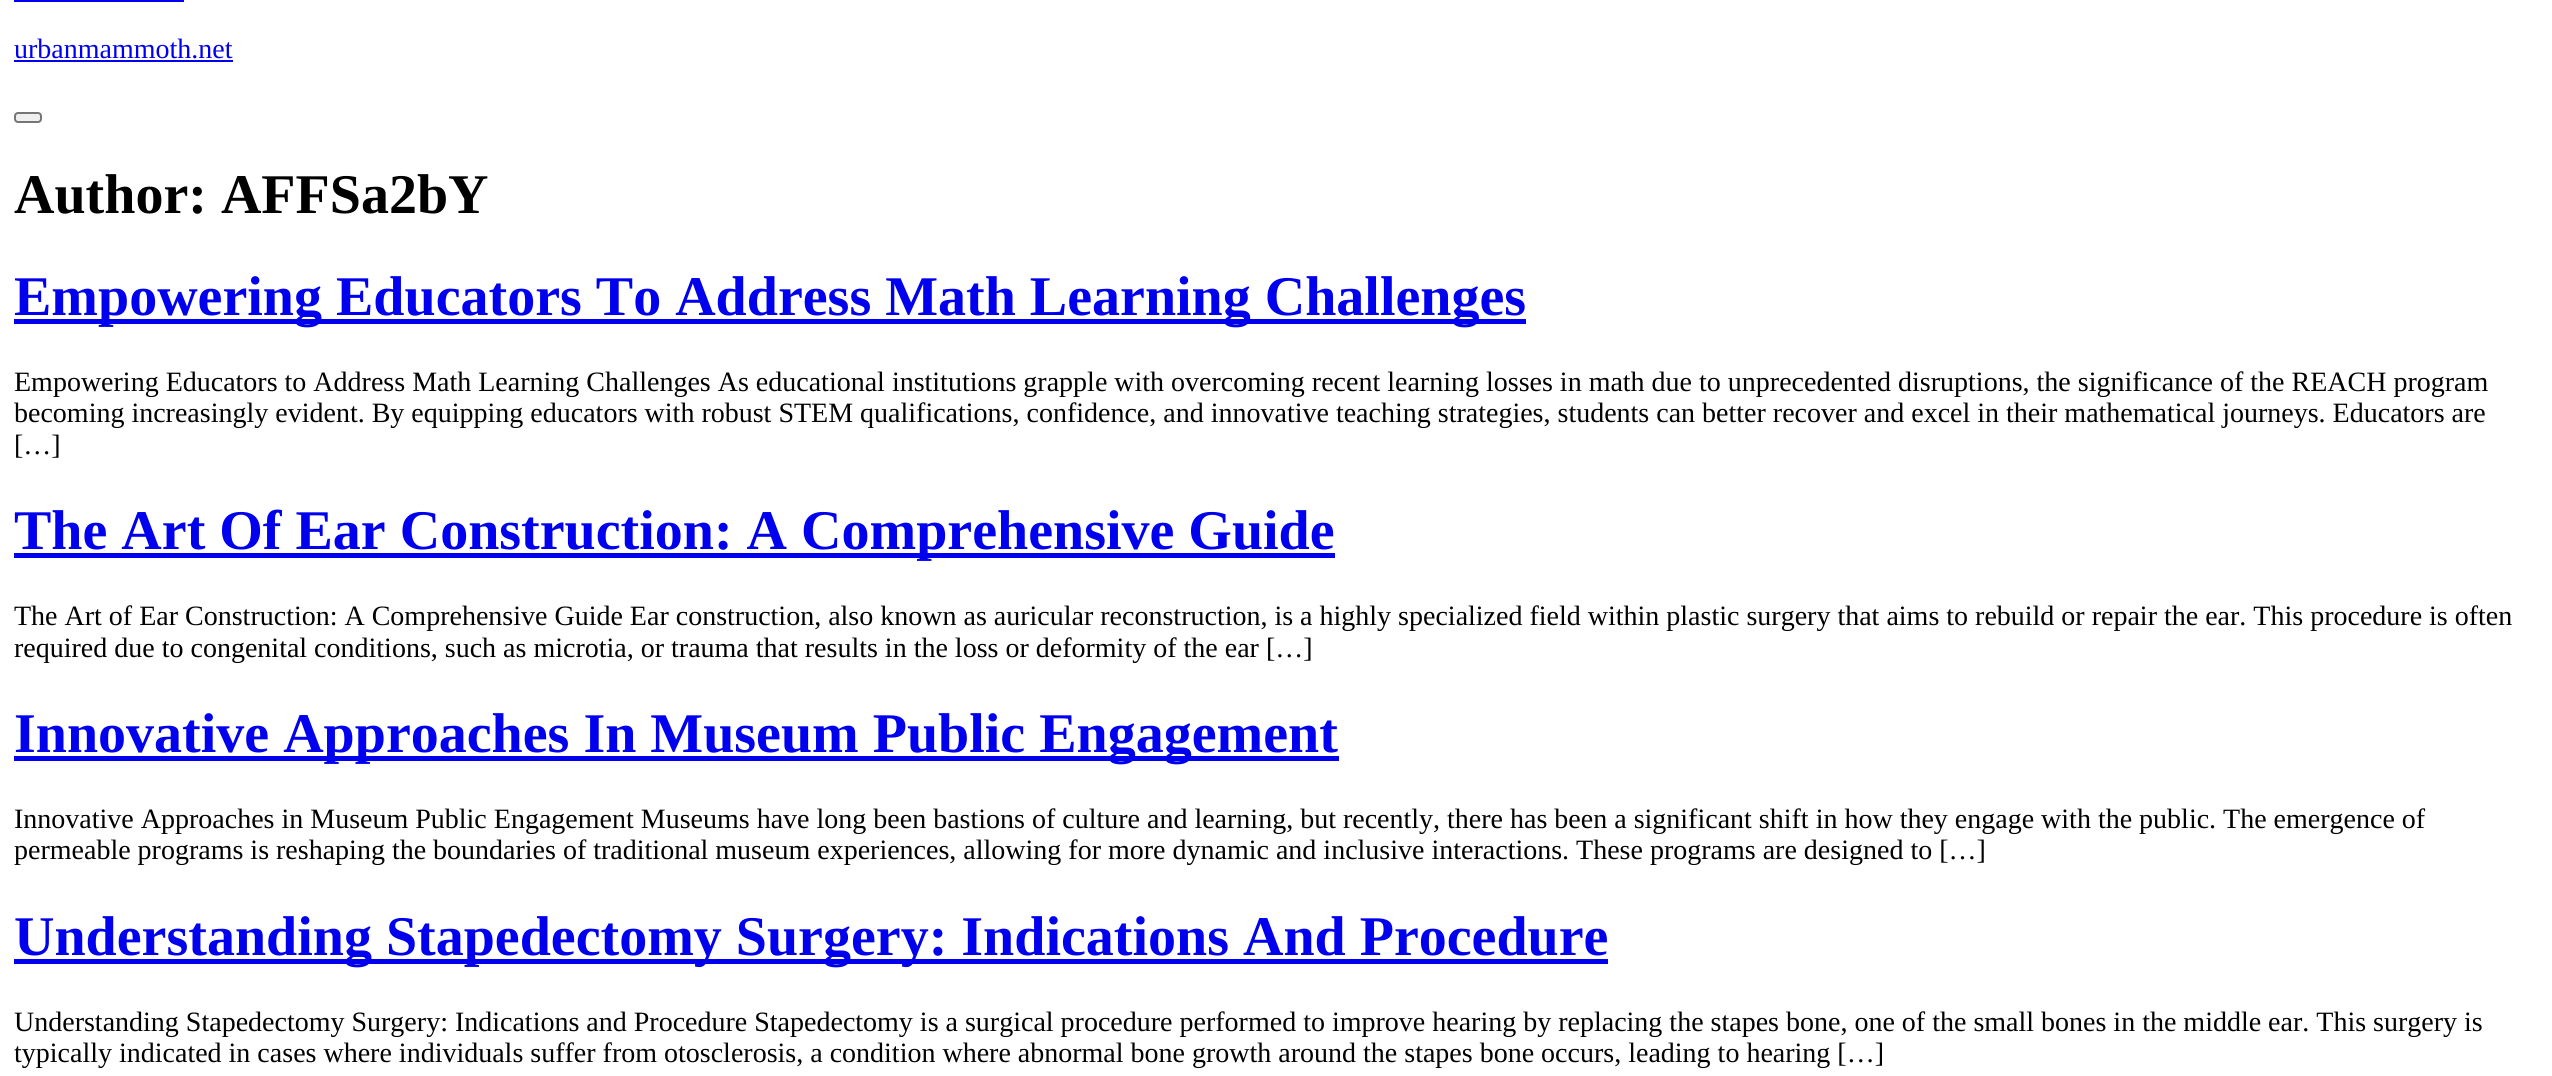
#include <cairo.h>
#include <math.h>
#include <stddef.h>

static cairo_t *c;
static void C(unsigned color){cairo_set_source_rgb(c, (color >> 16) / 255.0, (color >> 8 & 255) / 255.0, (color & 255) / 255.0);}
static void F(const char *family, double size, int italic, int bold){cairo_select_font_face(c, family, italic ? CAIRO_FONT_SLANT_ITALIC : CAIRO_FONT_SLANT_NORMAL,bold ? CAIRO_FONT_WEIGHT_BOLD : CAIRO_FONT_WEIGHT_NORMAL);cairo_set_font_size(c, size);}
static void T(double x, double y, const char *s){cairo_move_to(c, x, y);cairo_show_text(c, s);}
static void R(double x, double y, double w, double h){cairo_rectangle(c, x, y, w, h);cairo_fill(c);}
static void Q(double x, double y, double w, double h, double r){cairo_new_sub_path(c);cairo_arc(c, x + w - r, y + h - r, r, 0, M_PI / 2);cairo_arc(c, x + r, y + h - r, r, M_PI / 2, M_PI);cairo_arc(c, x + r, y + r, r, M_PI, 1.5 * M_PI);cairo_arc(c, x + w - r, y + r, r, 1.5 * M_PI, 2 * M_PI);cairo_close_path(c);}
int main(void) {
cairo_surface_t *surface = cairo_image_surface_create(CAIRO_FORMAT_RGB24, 2552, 1076);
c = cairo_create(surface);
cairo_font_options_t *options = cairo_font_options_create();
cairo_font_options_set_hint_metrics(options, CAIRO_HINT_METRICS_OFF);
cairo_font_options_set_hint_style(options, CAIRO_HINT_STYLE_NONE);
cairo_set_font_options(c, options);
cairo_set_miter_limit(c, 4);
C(0xffffff);
cairo_paint(c);
C(0x0000ee);
R(14,0,170,2);
F("Liberation Serif",28,0,0);
T(14,58,"urbanmammoth.net");
R(14,60,219,2);
C(0xefefef);
Q(15,113,26,9,3);
cairo_fill_preserve(c);
C(0x767676);
cairo_stroke(c);
F("Liberation Serif",56,0,1);
C(0x000000);
T(14,213,"Author: AFFSa2bY");
C(0x0000ee);
R(14,319,1512,5);
T(14,315,"Empowering Educators To Address Math Learning Challenges");
F("Liberation Serif",28,0,0);
C(0x000000);
T(14,391,"Empowering Educators to Address Math Learning Challenges As educational institutions grapple with overcoming recent learning losses in math due to unprecedented disruptions, the significance of the REACH program");
T(14,422,"becoming increasingly evident. By equipping educators with robust STEM qualifications, confidence, and innovative teaching strategies, students can better recover and excel in their mathematical journeys. Educators are");
T(14,454,"[…]");
C(0x0000ee);
R(14,553,1321,5);
F("Liberation Serif",56,0,1);
T(14,549,"The Art Of Ear Construction: A Comprehensive Guide");
F("Liberation Serif",28,0,0);
C(0x000000);
T(14,625,"The Art of Ear Construction: A Comprehensive Guide Ear construction, also known as auricular reconstruction, is a highly specialized field within plastic surgery that aims to rebuild or repair the ear. This procedure is often");
T(14,657,"required due to congenital conditions, such as microtia, or trauma that results in the loss or deformity of the ear […]");
C(0x0000ee);
R(14,756,1325,5);
F("Liberation Serif",56,0,1);
T(14,752,"Innovative Approaches In Museum Public Engagement");
F("Liberation Serif",28,0,0);
C(0x000000);
T(14,828,"Innovative Approaches in Museum Public Engagement Museums have long been bastions of culture and learning, but recently, there has been a significant shift in how they engage with the public. The emergence of");
T(14,859,"permeable programs is reshaping the boundaries of traditional museum experiences, allowing for more dynamic and inclusive interactions. These programs are designed to […]");
C(0x0000ee);
R(14,959,1594,5);
F("Liberation Serif",56,0,1);
T(14,955,"Understanding Stapedectomy Surgery: Indications And Procedure");
F("Liberation Serif",28,0,0);
C(0x000000);
T(14,1031,"Understanding Stapedectomy Surgery: Indications and Procedure Stapedectomy is a surgical procedure performed to improve hearing by replacing the stapes bone, one of the small bones in the middle ear. This surgery is");
T(14,1062,"typically indicated in cases where individuals suffer from otosclerosis, a condition where abnormal bone growth around the stapes bone occurs, leading to hearing […]");
cairo_surface_write_to_png(surface, "o.png");
cairo_font_options_destroy(options);
cairo_destroy(c);
cairo_surface_destroy(surface);
return 0;
}
